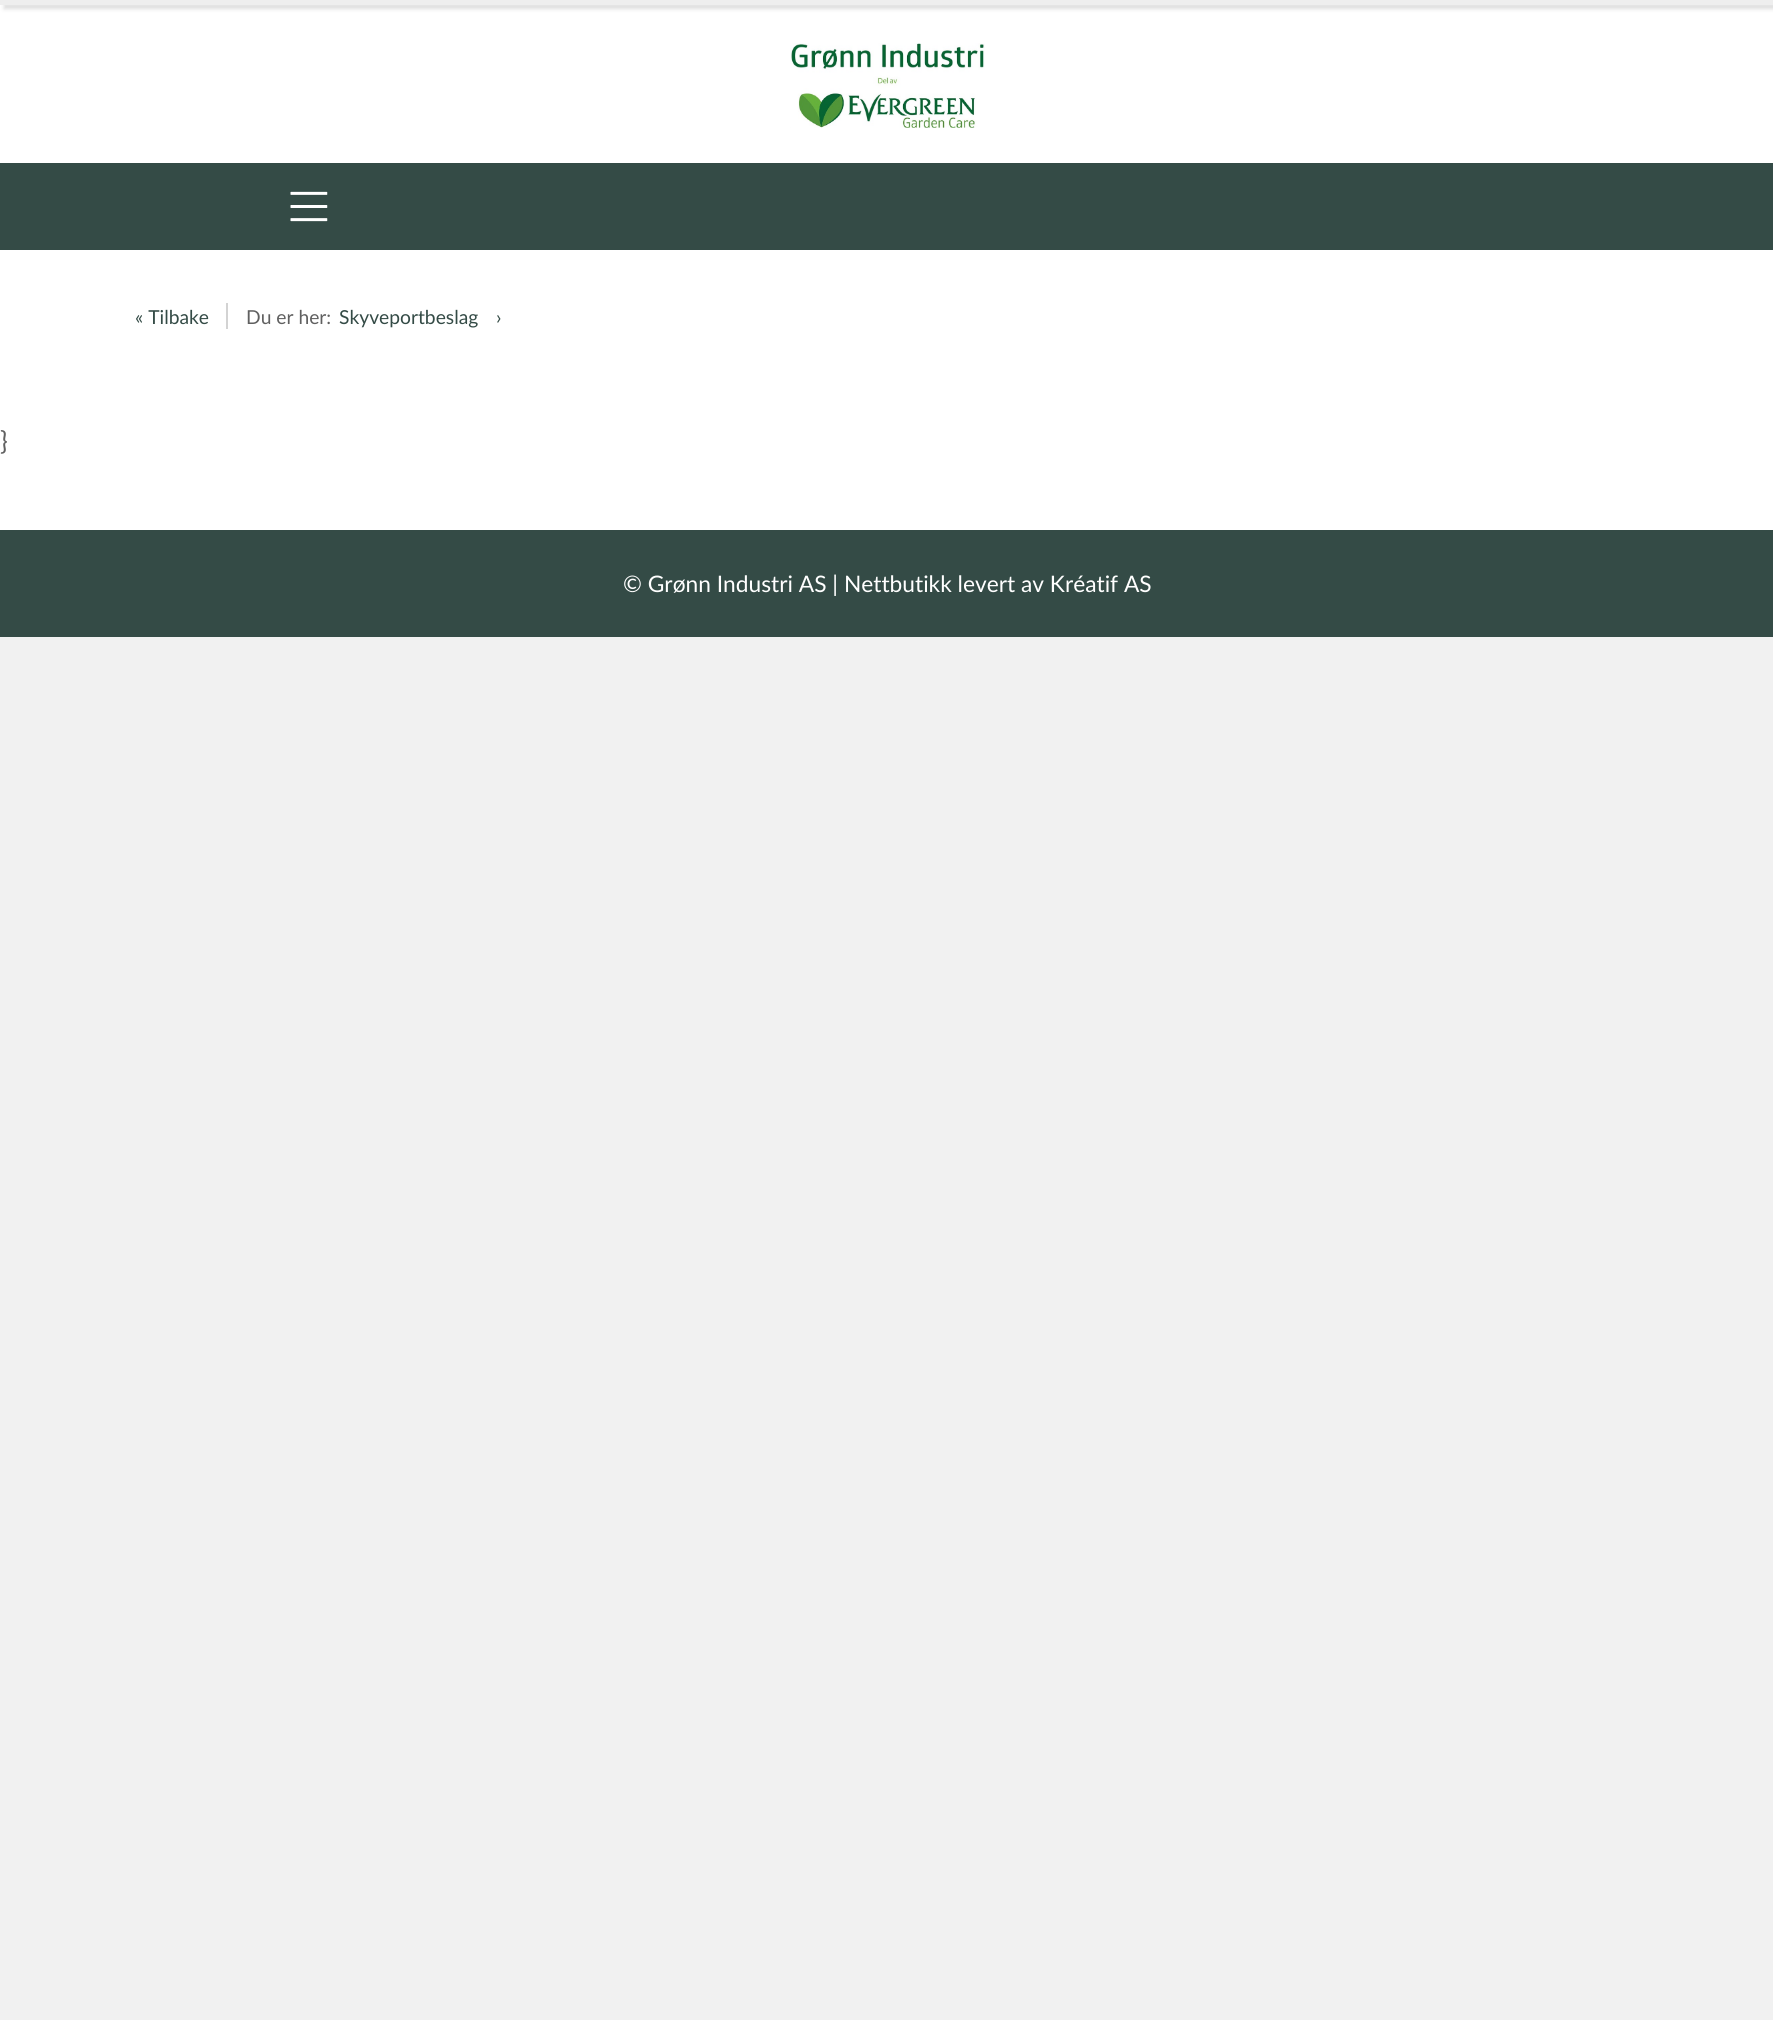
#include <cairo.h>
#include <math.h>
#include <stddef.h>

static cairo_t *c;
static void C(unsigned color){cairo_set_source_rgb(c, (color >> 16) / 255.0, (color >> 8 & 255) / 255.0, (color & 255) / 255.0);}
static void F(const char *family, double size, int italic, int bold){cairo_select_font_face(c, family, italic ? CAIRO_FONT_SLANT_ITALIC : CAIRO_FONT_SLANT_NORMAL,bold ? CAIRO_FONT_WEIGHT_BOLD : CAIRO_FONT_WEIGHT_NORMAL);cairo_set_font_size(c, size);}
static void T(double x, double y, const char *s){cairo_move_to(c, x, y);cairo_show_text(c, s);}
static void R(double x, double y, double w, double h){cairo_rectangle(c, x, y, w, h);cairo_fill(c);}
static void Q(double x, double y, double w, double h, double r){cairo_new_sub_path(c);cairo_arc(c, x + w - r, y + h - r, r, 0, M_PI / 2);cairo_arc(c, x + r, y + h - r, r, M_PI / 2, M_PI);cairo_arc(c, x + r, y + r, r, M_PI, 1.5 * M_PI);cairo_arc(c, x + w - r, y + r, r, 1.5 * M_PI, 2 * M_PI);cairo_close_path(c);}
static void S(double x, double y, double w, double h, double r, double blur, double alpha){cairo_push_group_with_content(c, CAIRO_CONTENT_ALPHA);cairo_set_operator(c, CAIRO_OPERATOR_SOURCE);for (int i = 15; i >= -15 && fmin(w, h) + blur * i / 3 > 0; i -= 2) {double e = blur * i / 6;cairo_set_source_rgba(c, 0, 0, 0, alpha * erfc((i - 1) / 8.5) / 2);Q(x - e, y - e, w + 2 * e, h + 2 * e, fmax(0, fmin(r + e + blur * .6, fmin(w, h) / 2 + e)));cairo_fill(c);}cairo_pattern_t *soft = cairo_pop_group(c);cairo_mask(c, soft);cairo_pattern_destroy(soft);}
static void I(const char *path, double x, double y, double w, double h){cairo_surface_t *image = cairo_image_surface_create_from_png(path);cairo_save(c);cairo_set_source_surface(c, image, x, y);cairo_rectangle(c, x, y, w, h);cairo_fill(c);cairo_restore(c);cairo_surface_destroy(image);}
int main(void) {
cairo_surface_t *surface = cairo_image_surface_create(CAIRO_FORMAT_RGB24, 1773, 2020);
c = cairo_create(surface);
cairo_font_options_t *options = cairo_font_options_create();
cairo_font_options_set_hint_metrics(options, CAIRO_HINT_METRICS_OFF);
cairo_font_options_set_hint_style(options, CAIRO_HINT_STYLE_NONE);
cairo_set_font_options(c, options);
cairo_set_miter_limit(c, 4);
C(0xf1f1f1);
cairo_paint(c);
C(0xffffff);
R(0,5,1773,525);
C(0xdddddd);
S(4,4,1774,5,0,2,1);
C(0xeeeeee);
R(0,0,1773,5);
I("1.png",790,43,195,85);
C(0x344b46);
R(0,163,1773,87);
I("2.png",290,191,38,31);
F("Lato",19.25,0,0);
T(135,324,"« Tilbake");
C(0xd3d3d3);
R(226,303,2,26);
C(0x606060);
T(246,324,"Du er her:");
C(0x344b46);
T(339,324,"Skyveportbeslag");
T(496,324,"›");
F("Lato",26,0,0);
C(0x606060);
T(0,450,"}");
C(0x344b46);
R(0,530,1773,107);
F("Lato",22.75,0,0);
C(0xffffff);
T(623,592,"© Grønn Industri AS | Nettbutikk levert av Kréatif AS");
cairo_surface_write_to_png(surface, "o.png");
cairo_font_options_destroy(options);
cairo_destroy(c);
cairo_surface_destroy(surface);
return 0;
}
